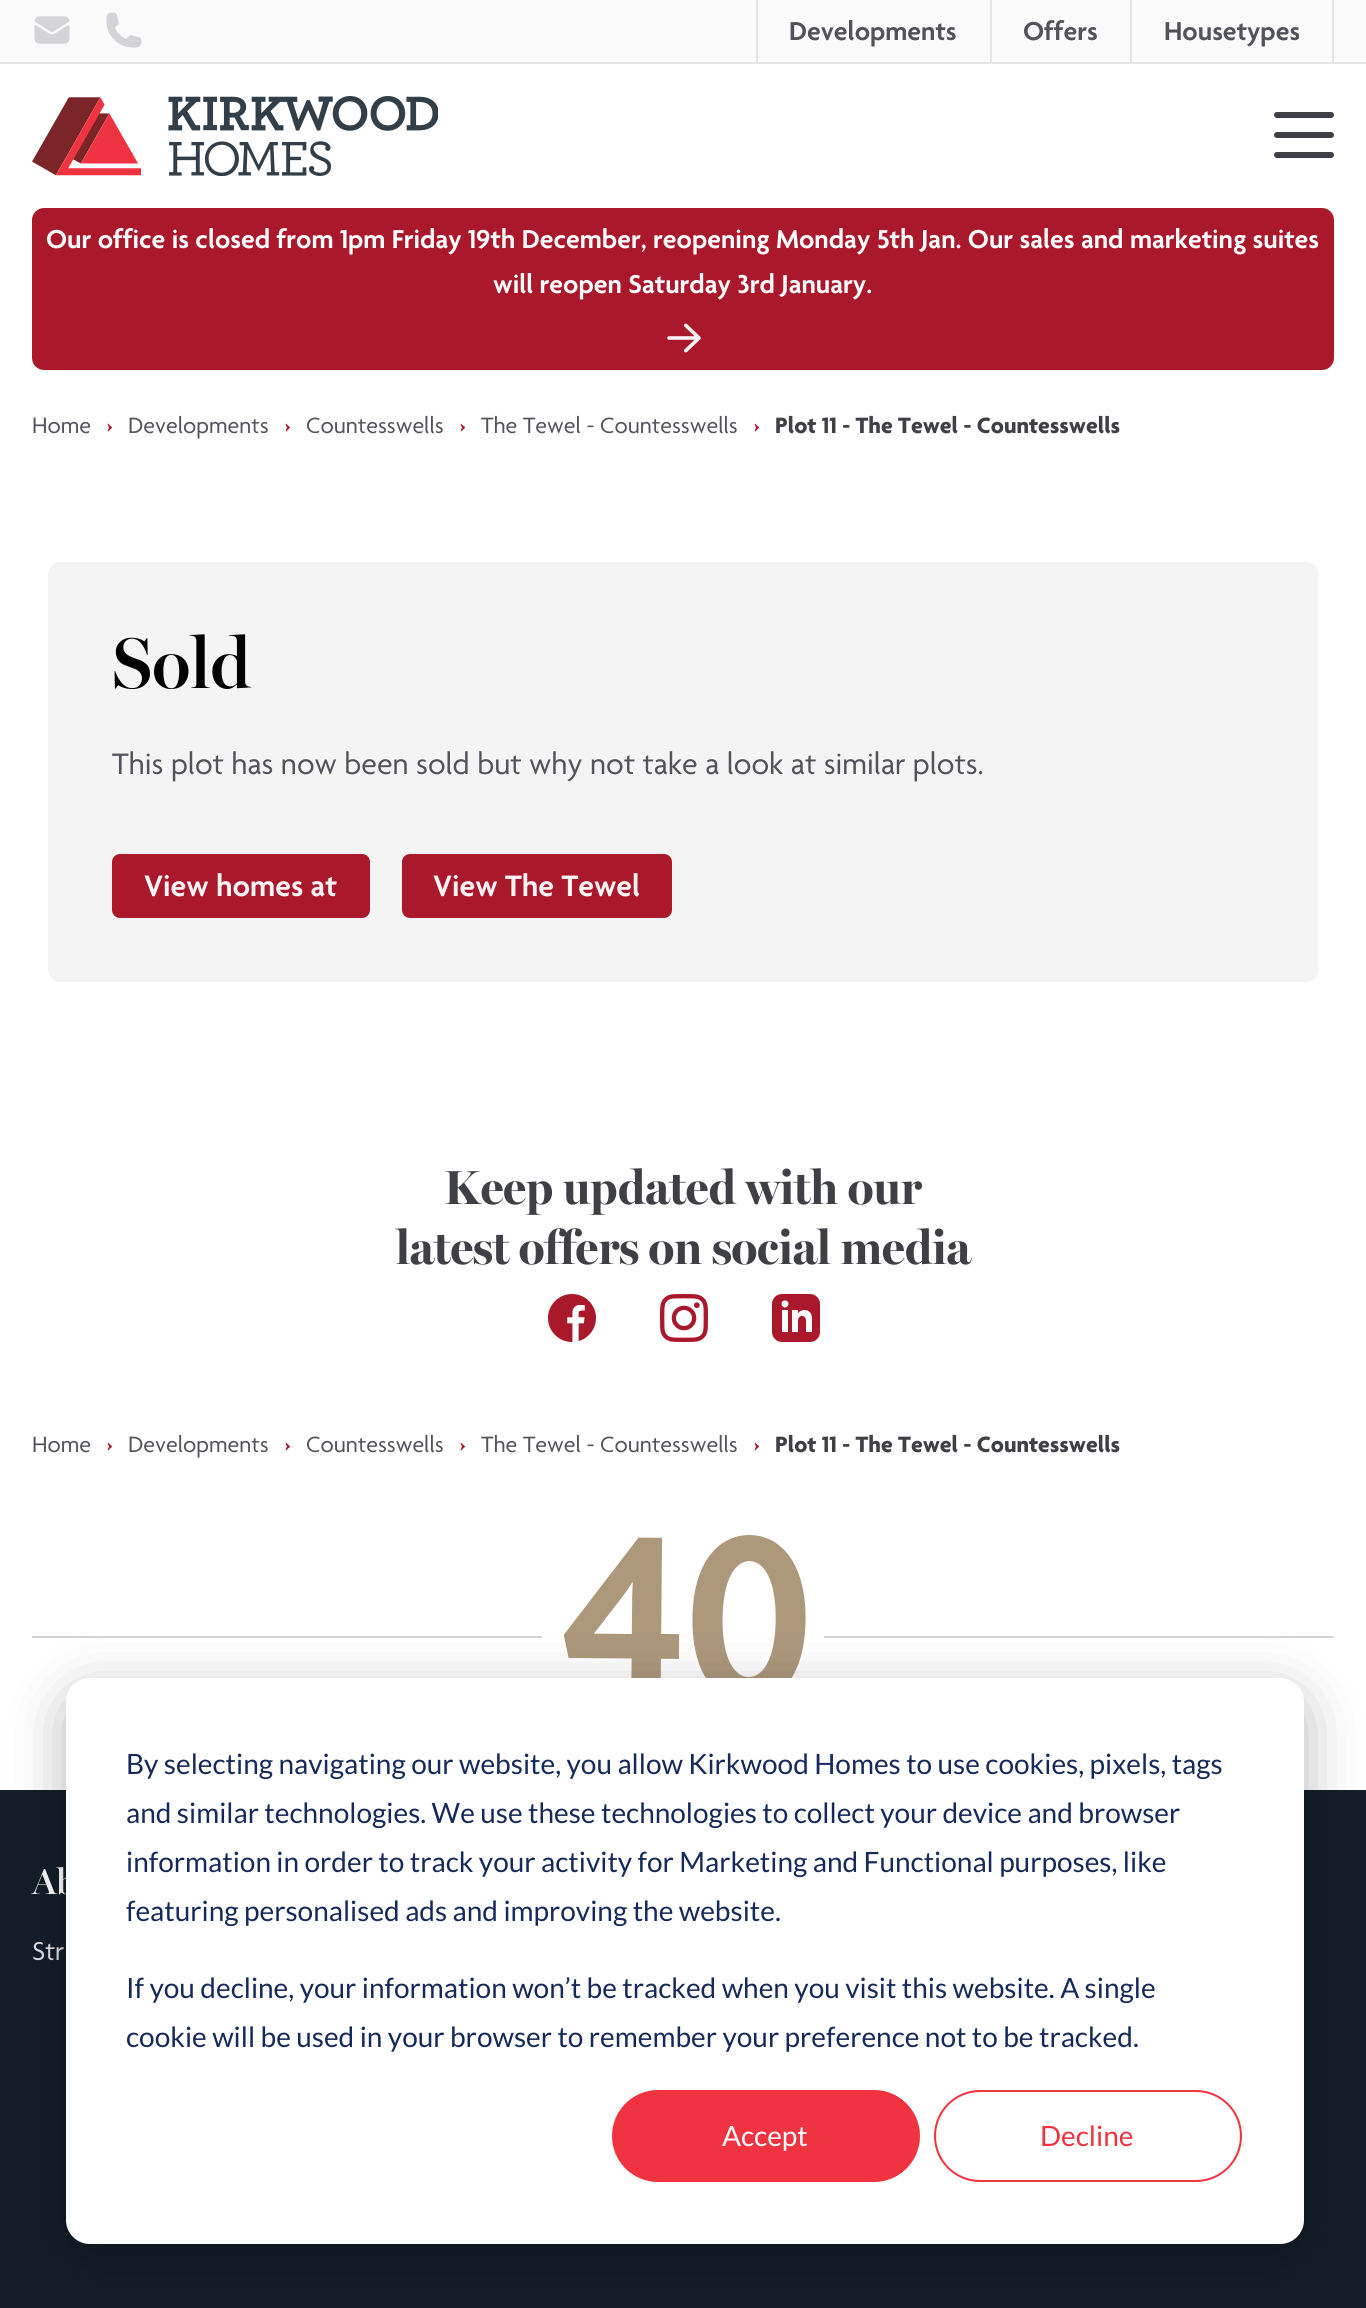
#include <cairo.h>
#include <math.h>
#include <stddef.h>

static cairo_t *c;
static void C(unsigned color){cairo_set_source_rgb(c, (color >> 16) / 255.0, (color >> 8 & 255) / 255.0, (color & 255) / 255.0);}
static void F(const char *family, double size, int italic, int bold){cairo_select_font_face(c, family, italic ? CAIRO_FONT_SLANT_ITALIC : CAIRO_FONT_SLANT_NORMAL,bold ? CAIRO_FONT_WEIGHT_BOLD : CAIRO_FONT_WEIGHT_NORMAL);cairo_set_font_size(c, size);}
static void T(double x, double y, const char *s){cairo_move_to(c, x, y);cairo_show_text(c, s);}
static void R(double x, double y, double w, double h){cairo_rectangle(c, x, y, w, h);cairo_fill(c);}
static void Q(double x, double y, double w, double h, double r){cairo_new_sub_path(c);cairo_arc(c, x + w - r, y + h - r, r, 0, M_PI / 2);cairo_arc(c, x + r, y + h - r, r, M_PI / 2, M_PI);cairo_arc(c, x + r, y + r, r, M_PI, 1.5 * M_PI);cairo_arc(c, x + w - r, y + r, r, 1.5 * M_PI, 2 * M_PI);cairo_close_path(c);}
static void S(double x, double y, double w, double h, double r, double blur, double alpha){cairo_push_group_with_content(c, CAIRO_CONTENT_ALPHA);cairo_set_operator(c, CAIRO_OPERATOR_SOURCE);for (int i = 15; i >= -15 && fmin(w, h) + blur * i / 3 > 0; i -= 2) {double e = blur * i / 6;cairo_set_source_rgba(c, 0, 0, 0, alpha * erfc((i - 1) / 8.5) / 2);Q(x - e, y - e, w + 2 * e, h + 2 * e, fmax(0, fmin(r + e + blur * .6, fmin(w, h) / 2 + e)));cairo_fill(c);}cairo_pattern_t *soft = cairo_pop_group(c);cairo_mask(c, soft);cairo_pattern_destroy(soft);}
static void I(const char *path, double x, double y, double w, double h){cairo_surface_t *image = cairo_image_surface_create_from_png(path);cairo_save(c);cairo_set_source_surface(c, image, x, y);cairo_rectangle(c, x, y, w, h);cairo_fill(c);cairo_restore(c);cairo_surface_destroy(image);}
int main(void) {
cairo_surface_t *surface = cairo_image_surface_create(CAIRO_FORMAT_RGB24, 1366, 2308);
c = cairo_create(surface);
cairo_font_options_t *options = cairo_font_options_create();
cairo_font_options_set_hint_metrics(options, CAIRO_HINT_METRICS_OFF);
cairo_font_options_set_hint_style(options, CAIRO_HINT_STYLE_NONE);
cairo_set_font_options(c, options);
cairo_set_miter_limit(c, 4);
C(0xffffff);
cairo_paint(c);
C(0xfafafa);
R(0,0,1366,62);
C(0xe4e4e7);
R(0,62,1366,2);
I("1.png",34,16,36,28);
I("2.png",106,12,36,36);
R(1332,0,2,62);
R(756,0,2,62);
F("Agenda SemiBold",28,0,0);
C(0x52525b);
T(789,40,"Developments");
C(0xe4e4e7);
R(990,0,2,62);
C(0x52525b);
T(1023,40,"Offers");
C(0xe4e4e7);
R(1130,0,2,62);
C(0x52525b);
T(1164,40,"Housetypes");
I("3.png",32,96,406,80);
C(0x3f3f46);
Q(1274,112,60,6,3);
cairo_fill(c);
Q(1274,132,60,6,3);
cairo_fill(c);
Q(1274,152,60,6,3);
cairo_fill(c);
C(0xaa182c);
Q(32,208,1302,162,12);
cairo_fill(c);
C(0xffffff);
T(46,248,"Our office is closed from 1pm Friday 19th December, reopening Monday 5th Jan. Our sales and marketing suites");
T(493,293,"will reopen Saturday 3rd January.");
I("4.png",667,323,34,30);
F("Agenda",24,0,0);
C(0x52525b);
T(32,433,"Home");
F("Agenda",24,0,1);
C(0xaa182c);
T(107,433,"›");
F("Agenda",24,0,0);
C(0x52525b);
T(128,433,"Developments");
F("Agenda",24,0,1);
C(0xaa182c);
T(285,433,"›");
F("Agenda",24,0,0);
C(0x52525b);
T(306,433,"Countesswells");
F("Agenda",24,0,1);
C(0xaa182c);
T(460,433,"›");
F("Agenda",24,0,0);
C(0x52525b);
T(481,433,"The Tewel - Countesswells");
F("Agenda",24,0,1);
C(0xaa182c);
T(754,433,"›");
C(0x3f3f46);
T(775,433,"Plot 11 - The Tewel - Countesswells");
C(0xf4f4f5);
Q(48,562,1270,420,12);
cairo_fill(c);
F("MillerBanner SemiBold",72,0,0);
C(0x000000);
T(112,688,"Sold");
F("Agenda",32,0,0);
C(0x52525b);
T(112,774,"This plot has now been sold but why not take a look at similar plots.");
C(0xaa182c);
Q(112,854,258,64,8);
cairo_fill(c);
F("Agenda SemiBold",32,0,0);
C(0xfbf3f4);
T(144,896,"View homes at");
C(0xaa182c);
Q(402,854,270,64,8);
cairo_fill(c);
C(0xfbf3f4);
T(433,896,"View The Tewel");
F("Miller Banner",48,0,1);
C(0x3f3f46);
T(444,1204,"Keep updated with our");
T(396,1264,"latest offers on social media");
I("5.png",548,1294,48,48);
I("6.png",660,1294,48,48);
I("7.png",772,1294,48,48);
F("Agenda",24,0,0);
C(0x52525b);
T(32,1452,"Home");
F("Agenda",24,0,1);
C(0xaa182c);
T(107,1452,"›");
F("Agenda",24,0,0);
C(0x52525b);
T(128,1452,"Developments");
F("Agenda",24,0,1);
C(0xaa182c);
T(285,1452,"›");
F("Agenda",24,0,0);
C(0x52525b);
T(306,1452,"Countesswells");
F("Agenda",24,0,1);
C(0xaa182c);
T(460,1452,"›");
F("Agenda",24,0,0);
C(0x52525b);
T(481,1452,"The Tewel - Countesswells");
F("Agenda",24,0,1);
C(0xaa182c);
T(754,1452,"›");
C(0x3f3f46);
T(775,1452,"Plot 11 - The Tewel - Countesswells");
C(0xd4d4d8);
R(32,1636,510,2);
I("8.png",564,1535,242,143);
R(824,1636,510,2);
C(0x131e29);
R(0,1790,1366,518);
F("MillerBanner SemiBold",36,0,0);
C(0xffffff);
T(32,1894,"Ab");
F("Agenda",28,0,0);
C(0xe4e4e7);
T(32,1960,"Str");
C(0x000000);
S(66,1694,1238,566,24,28,.28);
C(0xffffff);
Q(66,1678,1238,566,24);
cairo_fill(c);
F("Lato",28,0,0);
C(0x15295a);
T(126,1774,"By selecting navigating our website, you allow Kirkwood Homes to use cookies, pixels, tags");
T(126,1823,"and similar technologies. We use these technologies to collect your device and browser");
T(126,1872,"information in order to track your activity for Marketing and Functional purposes, like");
T(126,1921,"featuring personalised ads and improving the website.");
T(126,1998,"If you decline, your information won’t be tracked when you visit this website. A single");
T(126,2047,"cookie will be used in your browser to remember your preference not to be tracked.");
C(0xef3340);
Q(613,2091,306,90,45);
cairo_fill_preserve(c);
cairo_stroke(c);
C(0xffffff);
T(722,2146,"Accept");
Q(935,2091,306,90,45);
C(0xef3340);
cairo_stroke(c);
T(1040,2146,"Decline");
cairo_surface_write_to_png(surface, "o.png");
cairo_font_options_destroy(options);
cairo_destroy(c);
cairo_surface_destroy(surface);
return 0;
}
